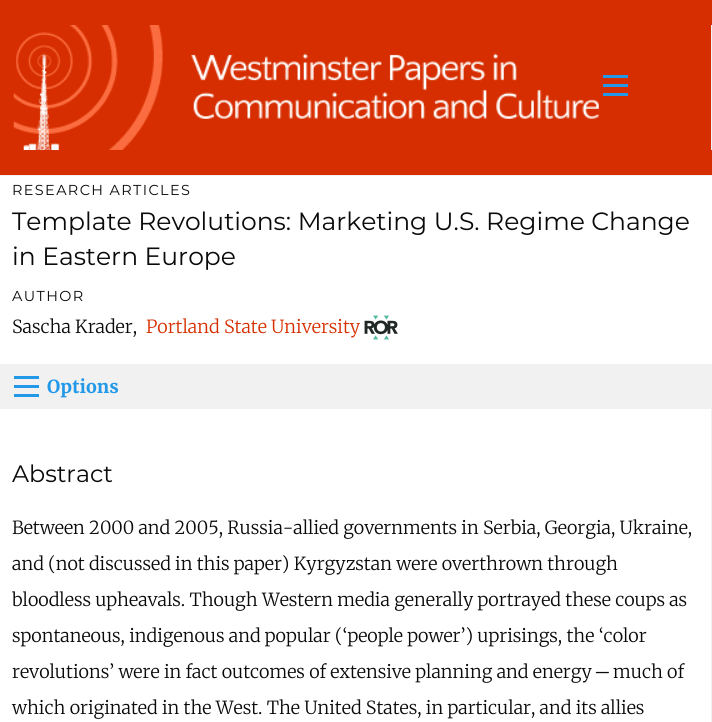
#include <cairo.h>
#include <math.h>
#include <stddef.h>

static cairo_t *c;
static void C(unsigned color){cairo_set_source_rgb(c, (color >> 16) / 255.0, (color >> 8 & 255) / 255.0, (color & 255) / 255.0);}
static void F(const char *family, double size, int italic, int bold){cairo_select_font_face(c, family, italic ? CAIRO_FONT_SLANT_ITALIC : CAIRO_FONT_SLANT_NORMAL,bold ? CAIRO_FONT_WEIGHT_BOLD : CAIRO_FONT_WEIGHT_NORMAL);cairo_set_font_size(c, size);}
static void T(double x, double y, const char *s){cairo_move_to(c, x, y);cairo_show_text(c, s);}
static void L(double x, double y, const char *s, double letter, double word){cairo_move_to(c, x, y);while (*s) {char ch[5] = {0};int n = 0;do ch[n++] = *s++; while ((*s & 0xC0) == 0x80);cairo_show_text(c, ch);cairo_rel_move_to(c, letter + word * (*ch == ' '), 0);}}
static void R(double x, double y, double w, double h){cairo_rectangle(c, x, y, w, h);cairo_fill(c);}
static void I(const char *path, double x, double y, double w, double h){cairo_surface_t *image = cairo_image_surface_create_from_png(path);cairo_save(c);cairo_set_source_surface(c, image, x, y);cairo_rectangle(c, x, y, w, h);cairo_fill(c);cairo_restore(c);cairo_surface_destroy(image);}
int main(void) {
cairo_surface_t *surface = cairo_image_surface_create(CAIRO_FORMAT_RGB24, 712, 722);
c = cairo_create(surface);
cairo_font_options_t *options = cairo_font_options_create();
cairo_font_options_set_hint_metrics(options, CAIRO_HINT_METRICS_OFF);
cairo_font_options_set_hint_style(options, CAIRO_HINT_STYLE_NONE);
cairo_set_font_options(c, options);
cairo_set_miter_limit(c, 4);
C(0xffffff);
cairo_paint(c);
C(0xd62e00);
R(0,0,712,175);
C(0xf1f1f1);
R(0,175,712,1);
R(711,25,1,125);
I("1.png",13,25,586,125);
C(0x2199e8);
R(603,93,25,3);
R(603,84,25,3);
R(603,75,25,3);
F("Montserrat",14.4,0,0);
C(0x0a0a0a);
L(12,195,"RESEARCH ARTICLES",1.4,0);
F("Montserrat",25,0,0);
T(12,230,"Template Revolutions: Marketing U.S. Regime Change");
T(12,265,"in Eastern Europe");
F("Montserrat",14.4,0,0);
L(12,301,"AUTHOR",1.4,0);
F("Merriweather Light",18,0,0);
T(12,333,"Sascha Krader,");
C(0xd62e00);
T(146,333,"Portland State University");
I("2.png",364,315,34,25);
C(0xf1f1f1);
R(0,364,712,45);
C(0x2199e8);
R(14,394,25,3);
R(14,385,25,3);
R(14,376,25,3);
F("Merriweather",18,0,1);
T(47,393,"Options");
C(0xf1f1f1);
R(711,409,1,313);
F("Montserrat",23.75,0,0);
C(0x0a0a0a);
T(12,482,"Abstract");
F("Merriweather Light",18,0,0);
T(12,534,"Between 2000 and 2005, Russia-allied governments in Serbia, Georgia, Ukraine,");
T(12,570,"and (not discussed in this paper) Kyrgyzstan were overthrown through");
T(12,606,"bloodless upheavals. Though Western media generally portrayed these coups as");
T(12,642,"spontaneous, indigenous and popular (‘people power’) uprisings, the ‘color");
T(12,678,"revolutions’ were in fact outcomes of extensive planning and energy");
F("Liberation Serif",18,0,0);
T(596,678,"─");
F("Merriweather Light",18,0,0);
T(613,678,"much of");
T(12,714,"which originated in the West. The United States, in particular, and its allies");
cairo_surface_write_to_png(surface, "o.png");
cairo_font_options_destroy(options);
cairo_destroy(c);
cairo_surface_destroy(surface);
return 0;
}
